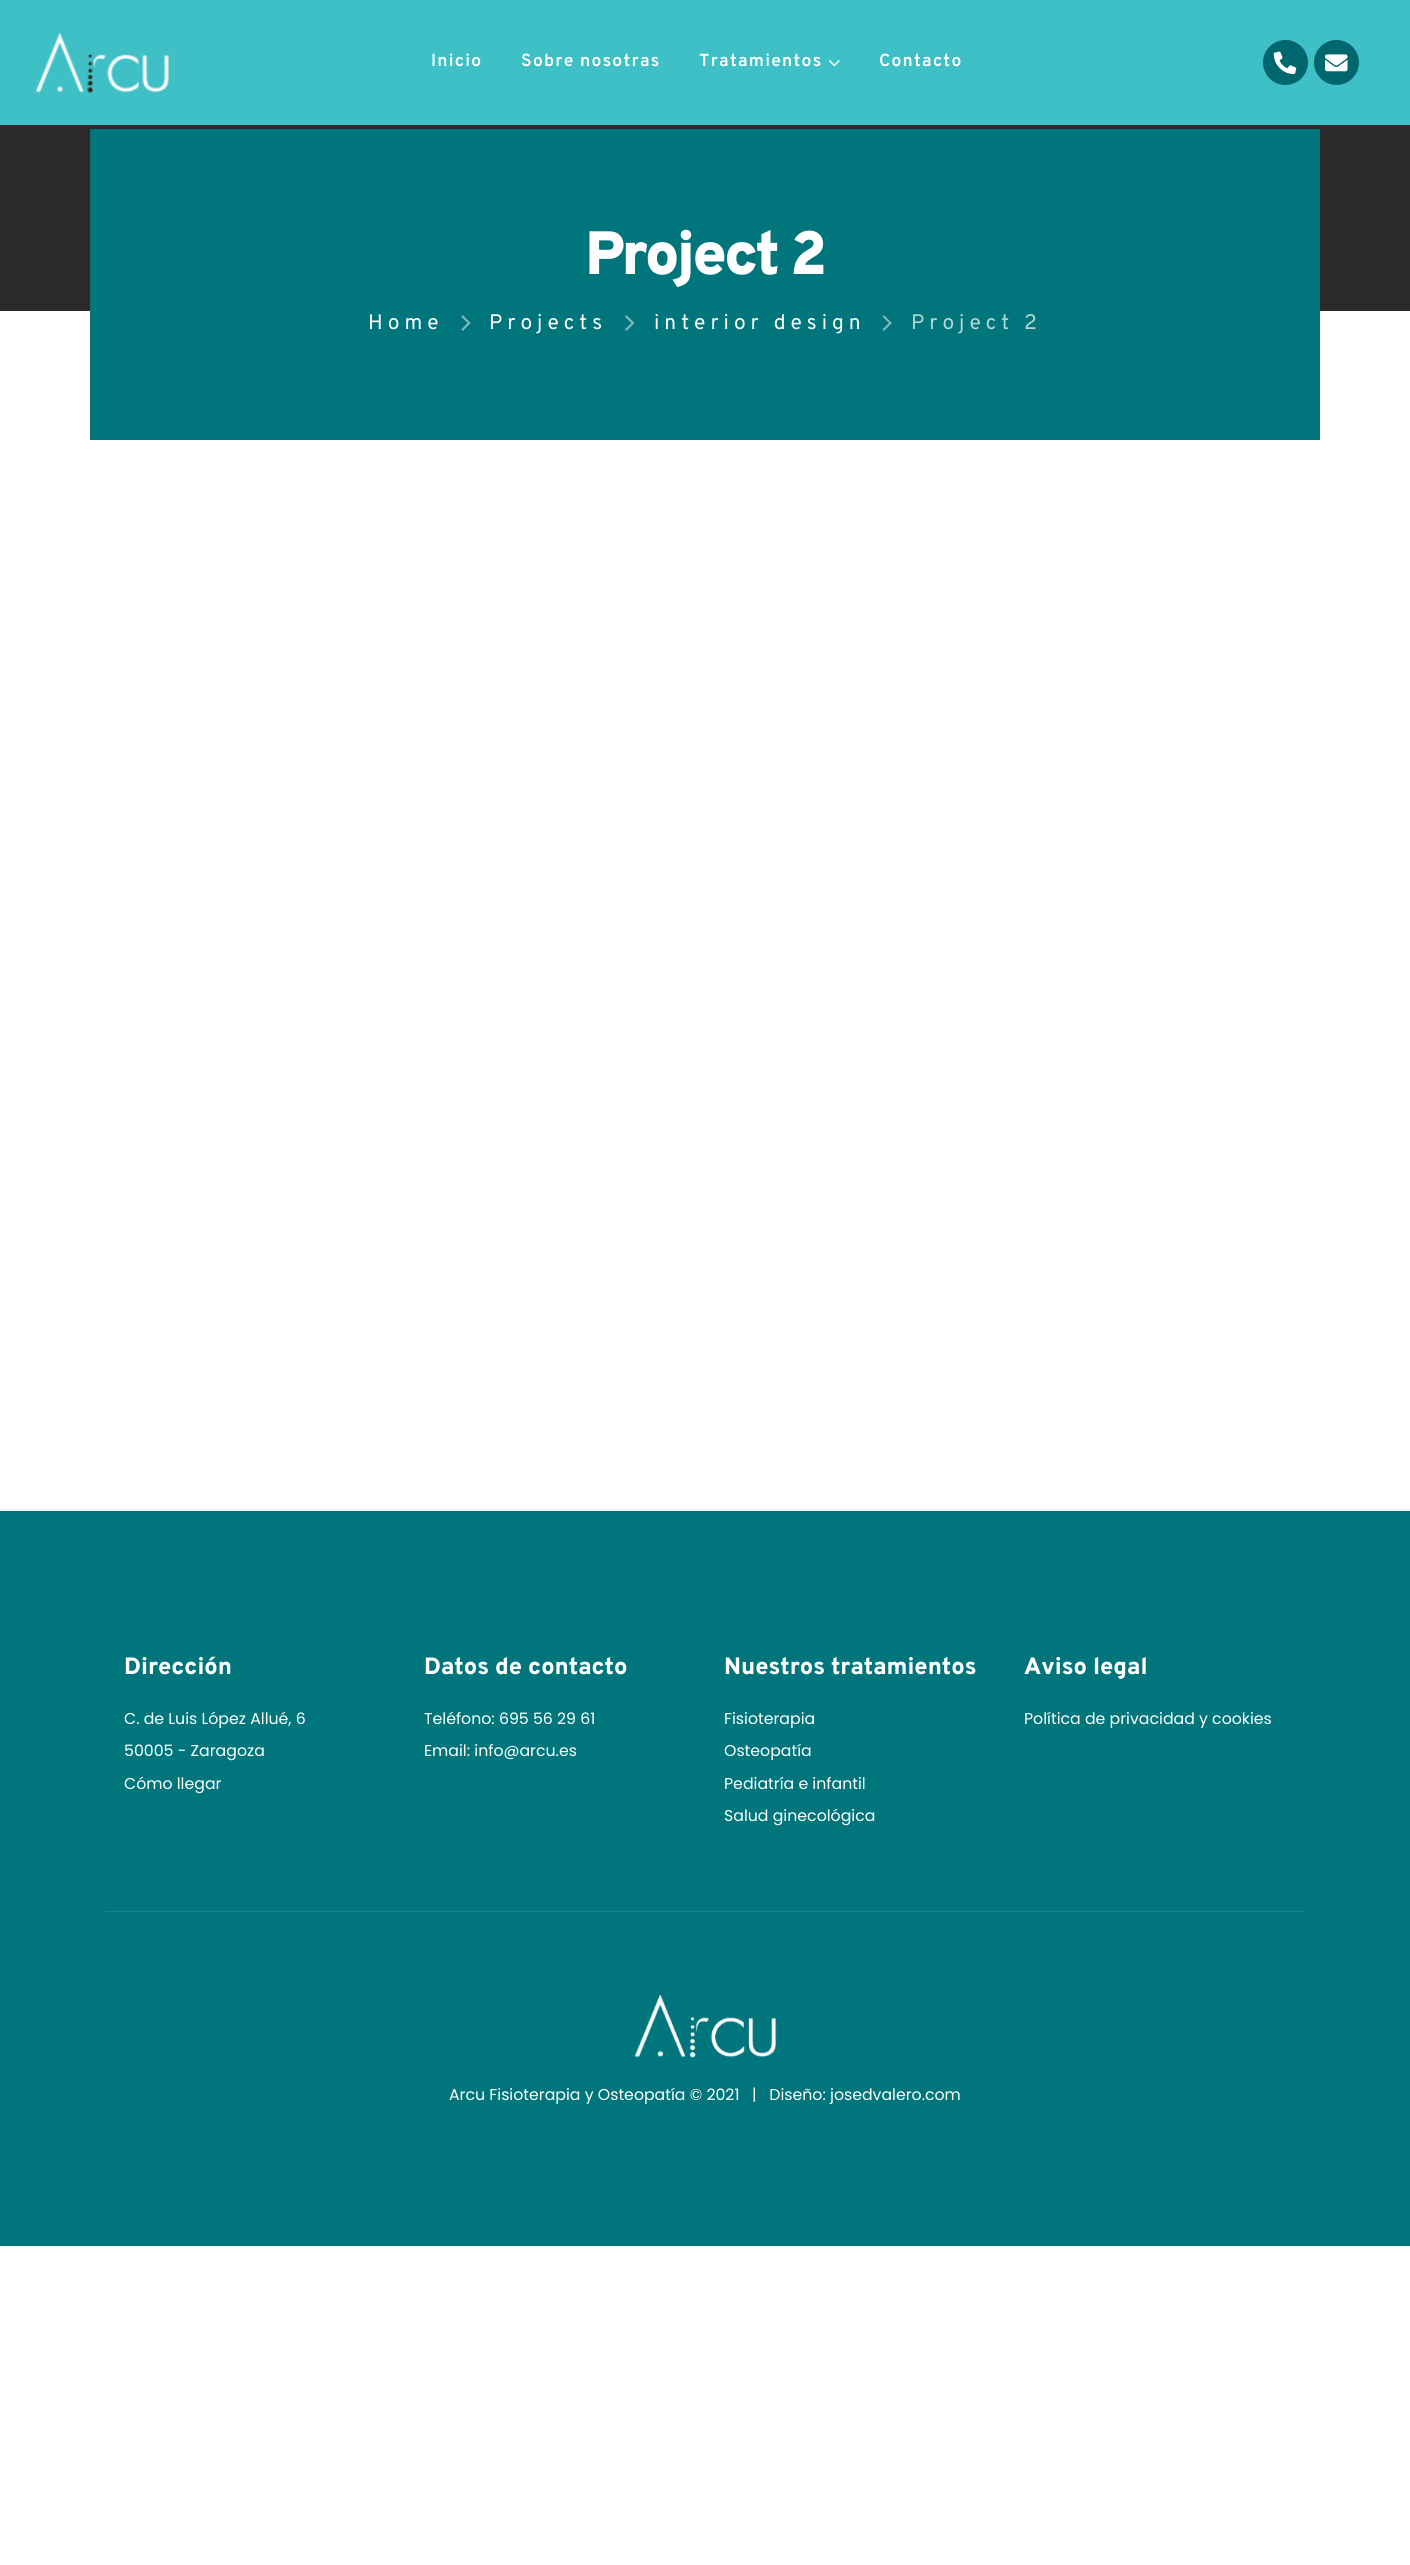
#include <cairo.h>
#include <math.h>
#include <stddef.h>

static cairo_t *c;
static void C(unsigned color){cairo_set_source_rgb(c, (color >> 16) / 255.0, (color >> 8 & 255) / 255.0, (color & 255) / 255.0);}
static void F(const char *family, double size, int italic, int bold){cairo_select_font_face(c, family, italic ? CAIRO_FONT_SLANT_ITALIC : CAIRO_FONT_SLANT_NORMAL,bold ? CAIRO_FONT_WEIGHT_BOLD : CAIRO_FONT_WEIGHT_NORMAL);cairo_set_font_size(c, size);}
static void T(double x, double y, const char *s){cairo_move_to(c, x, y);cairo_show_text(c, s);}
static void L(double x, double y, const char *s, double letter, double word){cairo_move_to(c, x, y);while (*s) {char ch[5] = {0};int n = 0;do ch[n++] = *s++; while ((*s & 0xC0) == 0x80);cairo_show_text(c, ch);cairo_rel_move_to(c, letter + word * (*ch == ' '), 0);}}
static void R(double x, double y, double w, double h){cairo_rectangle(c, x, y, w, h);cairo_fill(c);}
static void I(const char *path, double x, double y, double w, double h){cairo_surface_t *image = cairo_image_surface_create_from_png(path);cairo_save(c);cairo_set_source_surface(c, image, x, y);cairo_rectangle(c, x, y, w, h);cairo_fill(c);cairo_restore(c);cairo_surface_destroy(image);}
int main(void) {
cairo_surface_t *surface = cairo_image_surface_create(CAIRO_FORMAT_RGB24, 1410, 2565);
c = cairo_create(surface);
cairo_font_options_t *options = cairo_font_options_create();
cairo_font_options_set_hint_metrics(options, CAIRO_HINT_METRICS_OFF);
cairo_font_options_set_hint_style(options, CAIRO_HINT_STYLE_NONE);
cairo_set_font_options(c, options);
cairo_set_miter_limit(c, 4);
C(0xffffff);
cairo_paint(c);
C(0x3fc0c7);
R(0,0,1410,125);
I("1.png",35,32,134,61);
F("Overpass SemiBold",17.5,0,0);
C(0xffffff);
L(431,66,"Inicio",1.25,0);
L(521,66,"Sobre nosotras",1.25,0);
L(699,66,"Tratamientos",1.25,0);
I("2.png",829,60,11,7);
L(879,66,"Contacto",1.25,0);
C(0x00676e);
cairo_new_path(c);
cairo_arc(c,1285.5,62.5,22.5,0,2 * M_PI);
cairo_fill(c);
I("3.png",1273,51,24,24);
cairo_arc(c,1336.5,62.5,22.5,0,2 * M_PI);
cairo_fill(c);
I("4.png",1325,54,23,18);
C(0x2a2a2a);
R(0,125,1410,186);
C(0x00757b);
R(90,129,1230,311);
F("Overpass Black",61,0,0);
C(0xffffff);
L(585,274,"Project 2",-3,0);
F("Overpass",21,0,0);
L(368,329,"Home",5,0);
I("5.png",461,315,10,16);
L(489,329,"Projects",5,0);
I("6.png",625,315,10,16);
L(654,329,"interior design",5,0);
I("7.png",882,315,10,16);
C(0xb3d6d7);
L(911,329,"Project 2",5,0);
C(0x00757b);
R(0,1511,1410,735);
F("Overpass ExtraBold",23.6,0,0);
C(0xffffff);
T(124,1674,"Dirección");
F("Poppins",15.75,0,0);
T(124,1724,"C. de Luis López Allué, 6");
T(124,1756,"50005 - Zaragoza");
T(124,1789,"Cómo llegar");
F("Overpass ExtraBold",23.6,0,0);
T(424,1674,"Datos de contacto");
F("Poppins",15.75,0,0);
T(424,1724,"Teléfono: 695 56 29 61");
T(424,1756,"Email: info@arcu.es");
F("Overpass ExtraBold",23.6,0,0);
T(724,1674,"Nuestros tratamientos");
F("Poppins",15.75,0,0);
T(724,1724,"Fisioterapia");
T(724,1756,"Osteopatía");
T(724,1789,"Pediatría e infantil");
T(724,1821,"Salud ginecológica");
F("Overpass ExtraBold",23.6,0,0);
T(1024,1674,"Aviso legal");
F("Poppins",15.75,0,0);
T(1024,1724,"Política de privacidad y cookies");
C(0x1a8388);
R(105,1911,1200,1);
I("8.png",634,1994,143,64);
C(0xffffff);
T(449,2100,"Arcu Fisioterapia y Osteopatía © 2021   |   Diseño: josedvalero.com");
cairo_surface_write_to_png(surface, "o.png");
cairo_font_options_destroy(options);
cairo_destroy(c);
cairo_surface_destroy(surface);
return 0;
}
